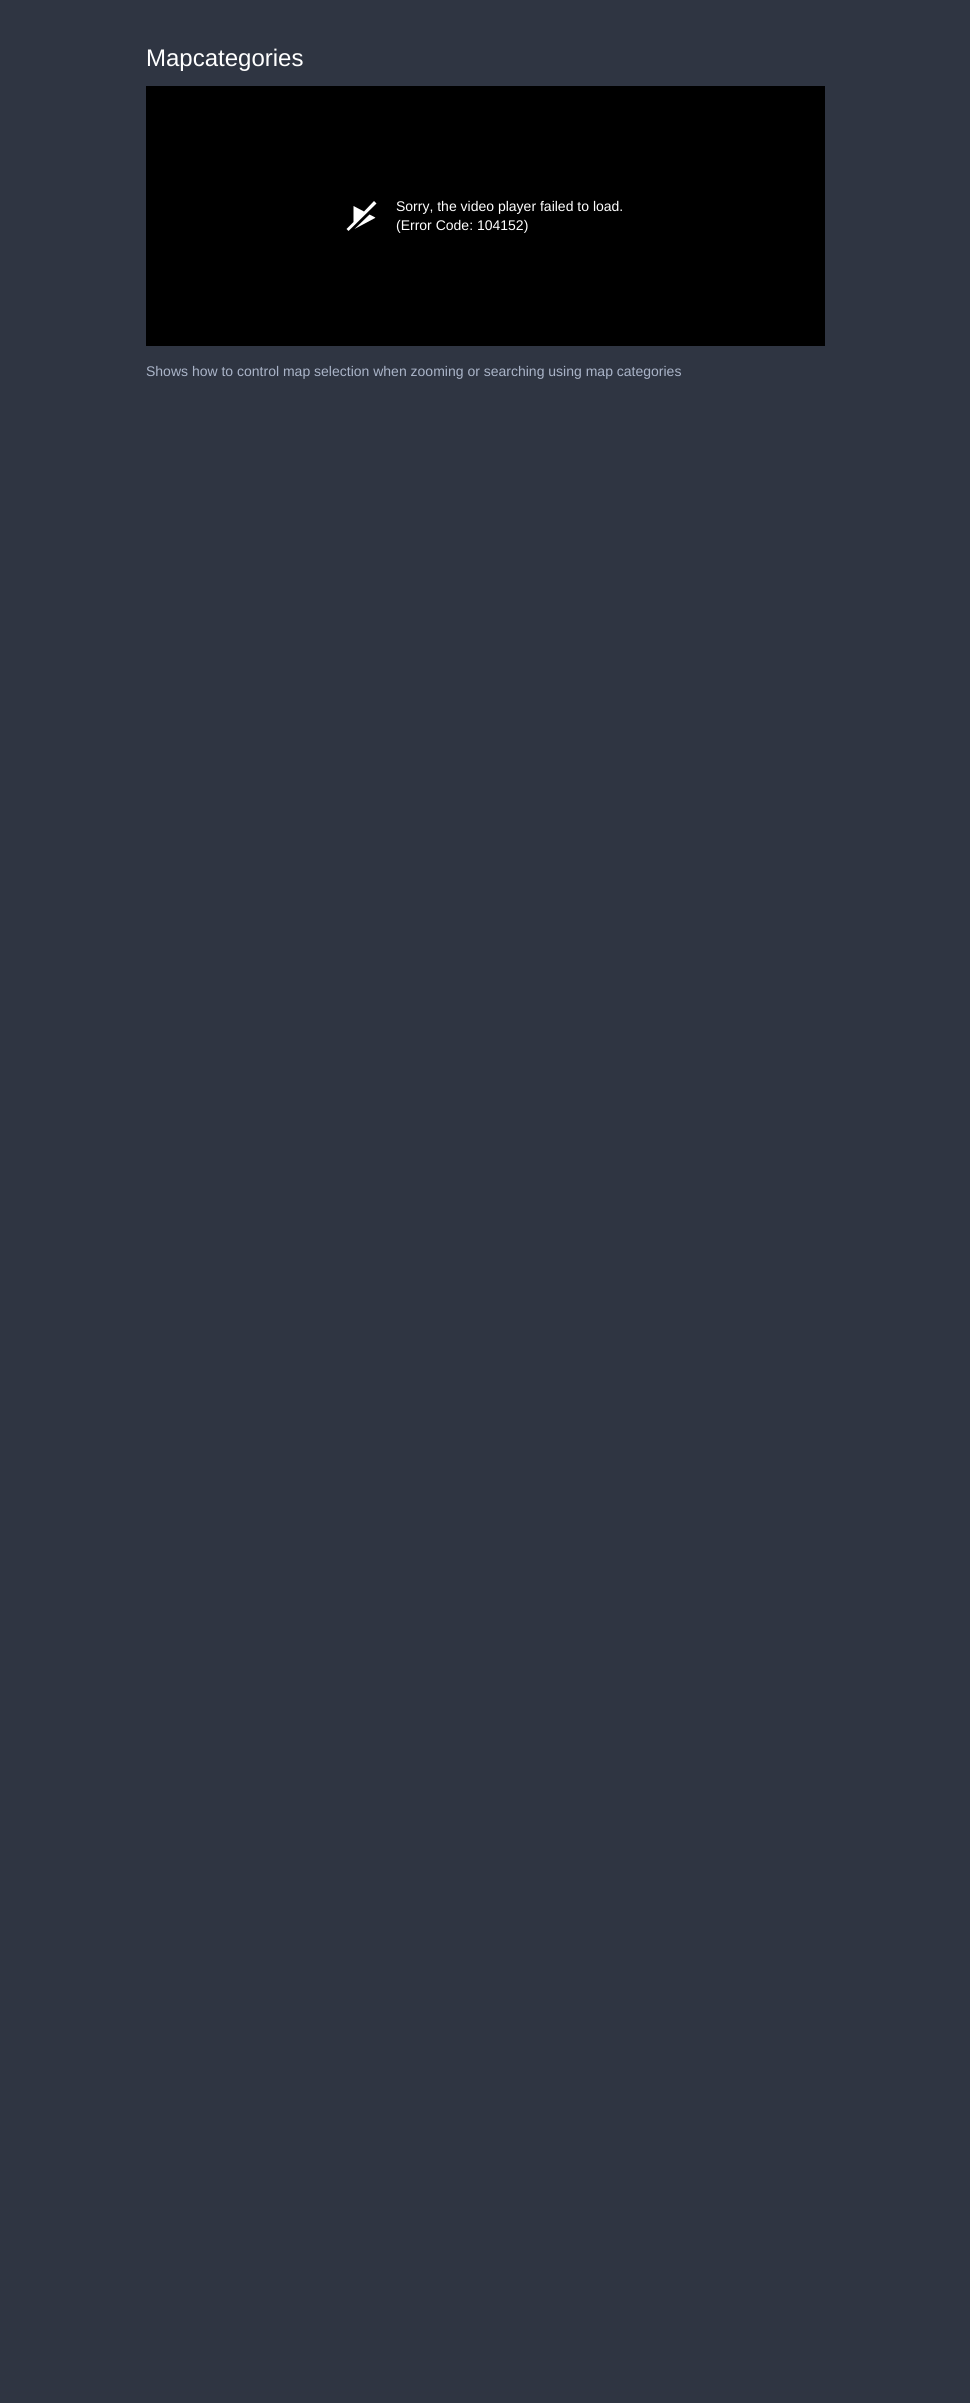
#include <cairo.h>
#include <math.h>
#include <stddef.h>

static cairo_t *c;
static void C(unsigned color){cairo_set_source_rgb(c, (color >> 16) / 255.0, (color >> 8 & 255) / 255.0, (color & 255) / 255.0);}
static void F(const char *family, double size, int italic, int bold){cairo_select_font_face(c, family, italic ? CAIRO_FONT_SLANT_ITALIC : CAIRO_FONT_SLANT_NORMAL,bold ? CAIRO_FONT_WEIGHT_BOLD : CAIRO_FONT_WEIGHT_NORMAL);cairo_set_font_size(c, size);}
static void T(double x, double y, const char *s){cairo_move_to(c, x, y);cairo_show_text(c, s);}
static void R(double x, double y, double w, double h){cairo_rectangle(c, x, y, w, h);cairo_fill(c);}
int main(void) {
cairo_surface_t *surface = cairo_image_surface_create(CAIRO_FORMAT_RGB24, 970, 2403);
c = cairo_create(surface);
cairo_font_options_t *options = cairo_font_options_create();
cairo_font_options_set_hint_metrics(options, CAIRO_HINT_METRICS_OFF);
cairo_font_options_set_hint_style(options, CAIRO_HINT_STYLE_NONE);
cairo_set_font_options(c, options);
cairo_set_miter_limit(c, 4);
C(0x2f3542);
cairo_paint(c);
F("Liberation Sans",24,0,0);
C(0xffffff);
T(146,66,"Mapcategories");
C(0x000000);
R(146,86,679,260);
C(0xffffff);
cairo_new_path(c);
cairo_move_to(c,375,218);
cairo_line_to(c,354.5,229);
cairo_line_to(c,369.5,214.5);
cairo_curve_to(c,375,217.5,376,217.5,375,218);
cairo_close_path(c);
cairo_move_to(c,374,201);
cairo_line_to(c,364,211.5);
cairo_line_to(c,353.5,206);
cairo_line_to(c,353.5,222);
cairo_line_to(c,346.5,229);
cairo_line_to(c,348.5,231);
cairo_line_to(c,376.5,203.5);
cairo_close_path(c);
cairo_fill(c);
F("Liberation Sans",14,0,0);
T(396,211,"Sorry, the video player failed to load.");
T(396,230,"(Error Code: 104152)");
C(0xaab4c8);
T(146,376,"Shows how to control map selection when zooming or searching using map categories");
cairo_surface_write_to_png(surface, "o.png");
cairo_font_options_destroy(options);
cairo_destroy(c);
cairo_surface_destroy(surface);
return 0;
}
